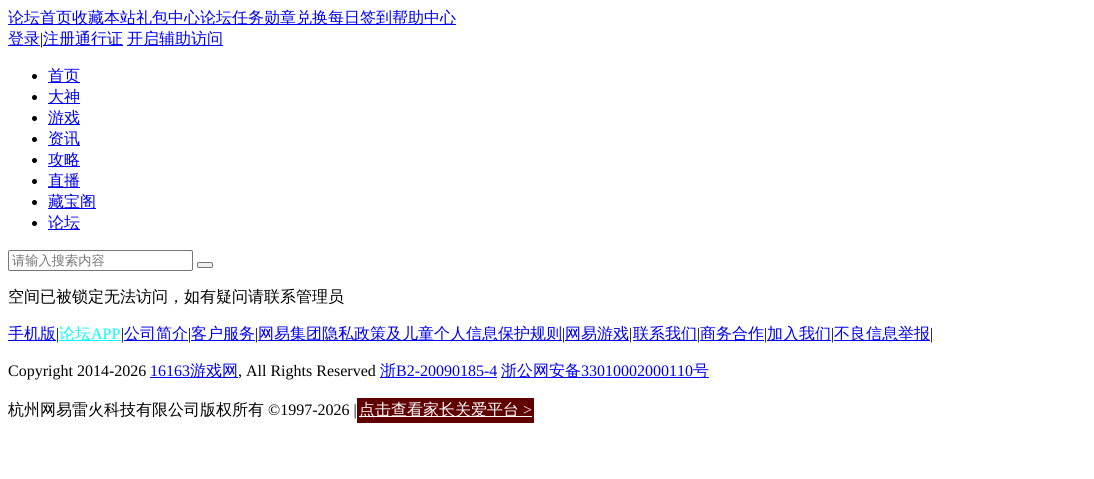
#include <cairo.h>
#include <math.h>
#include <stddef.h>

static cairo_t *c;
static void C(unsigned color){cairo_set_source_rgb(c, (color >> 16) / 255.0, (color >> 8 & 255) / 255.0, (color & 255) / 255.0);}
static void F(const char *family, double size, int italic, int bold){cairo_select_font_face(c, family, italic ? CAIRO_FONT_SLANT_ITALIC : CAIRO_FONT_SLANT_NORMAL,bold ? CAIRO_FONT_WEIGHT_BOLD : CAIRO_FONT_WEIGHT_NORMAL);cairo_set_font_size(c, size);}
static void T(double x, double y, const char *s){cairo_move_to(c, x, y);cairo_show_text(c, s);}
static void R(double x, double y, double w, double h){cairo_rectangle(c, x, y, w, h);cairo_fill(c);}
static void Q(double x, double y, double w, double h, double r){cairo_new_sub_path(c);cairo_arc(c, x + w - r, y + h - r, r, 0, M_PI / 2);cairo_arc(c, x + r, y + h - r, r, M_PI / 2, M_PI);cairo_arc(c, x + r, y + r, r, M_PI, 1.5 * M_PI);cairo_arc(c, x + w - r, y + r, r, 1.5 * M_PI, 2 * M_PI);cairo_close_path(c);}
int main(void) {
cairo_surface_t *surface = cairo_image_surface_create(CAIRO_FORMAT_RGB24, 1094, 479);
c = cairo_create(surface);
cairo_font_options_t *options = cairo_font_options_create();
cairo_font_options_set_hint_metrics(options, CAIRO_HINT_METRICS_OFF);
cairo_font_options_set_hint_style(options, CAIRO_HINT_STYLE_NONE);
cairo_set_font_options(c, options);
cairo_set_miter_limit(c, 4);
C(0xffffff);
cairo_paint(c);
C(0x0000ee);
R(8,24,448,1);
F("WenQuanYi Zen Hei Medium",16,0,0);
T(8,23,"论坛首页收藏本站礼包中心论坛任务勋章兑换每日签到帮助中心");
R(8,45,32,1);
T(8,44,"登录");
F("Liberation Serif",16,0,0);
C(0x000000);
T(40,44,"|");
C(0x0000ee);
R(43,45,80,1);
F("WenQuanYi Zen Hei Medium",16,0,0);
T(43,44,"注册通行证");
R(127,45,96,1);
T(127,44,"开启辅助访问");
C(0x000000);
cairo_new_path(c);
cairo_arc(c,34.5,76.5,2.5,0,2 * M_PI);
cairo_fill(c);
C(0x0000ee);
R(48,82,32,1);
T(48,81,"首页");
C(0x000000);
cairo_new_path(c);
cairo_arc(c,34.5,97.5,2.5,0,2 * M_PI);
cairo_fill(c);
C(0x0000ee);
R(48,103,32,1);
T(48,102,"大神");
C(0x000000);
cairo_new_path(c);
cairo_arc(c,34.5,118.5,2.5,0,2 * M_PI);
cairo_fill(c);
C(0x0000ee);
R(48,124,32,1);
T(48,123,"游戏");
C(0x000000);
cairo_new_path(c);
cairo_arc(c,34.5,139.5,2.5,0,2 * M_PI);
cairo_fill(c);
C(0x0000ee);
R(48,145,32,1);
T(48,144,"资讯");
C(0x000000);
cairo_new_path(c);
cairo_arc(c,34.5,160.5,2.5,0,2 * M_PI);
cairo_fill(c);
C(0x0000ee);
R(48,166,32,1);
T(48,165,"攻略");
C(0x000000);
cairo_new_path(c);
cairo_arc(c,34.5,181.5,2.5,0,2 * M_PI);
cairo_fill(c);
C(0x0000ee);
R(48,187,32,1);
T(48,186,"直播");
C(0x000000);
cairo_new_path(c);
cairo_arc(c,34.5,202.5,2.5,0,2 * M_PI);
cairo_fill(c);
C(0x0000ee);
R(48,208,48,1);
T(48,207,"藏宝阁");
C(0x000000);
cairo_new_path(c);
cairo_arc(c,34.5,223.5,2.5,0,2 * M_PI);
cairo_fill(c);
C(0x0000ee);
R(48,229,32,1);
T(48,228,"论坛");
Q(8.5,250.5,184,20,1.5);
C(0x767676);
cairo_set_line_width(c,1);
cairo_stroke(c);
F("WenQuanYi Zen Hei Medium",13.25,0,0);
C(0x757575);
T(12,265,"请输入搜索内容");
C(0xefefef);
Q(197.5,262.5,15,5,1.5);
cairo_fill_preserve(c);
C(0x767676);
cairo_stroke(c);
F("WenQuanYi Zen Hei Medium",16,0,0);
C(0x000000);
T(8,302,"空间已被锁定无法访问，如有疑问请联系管理员");
C(0x0000ee);
R(8,340,48,1);
T(8,339,"手机版");
F("Liberation Serif",16,0,0);
C(0x000000);
T(56,339,"|");
C(0x00ffff);
R(59,340,62,1);
F("WenQuanYi Zen Hei Medium",16,0,0);
T(59,339,"论坛");
F("Liberation Serif",16,0,0);
T(91,339,"APP");
C(0x000000);
T(121,339,"|");
C(0x0000ee);
R(124,340,64,1);
F("WenQuanYi Zen Hei Medium",16,0,0);
T(124,339,"公司简介");
F("Liberation Serif",16,0,0);
C(0x000000);
T(188,339,"|");
C(0x0000ee);
R(191,340,64,1);
F("WenQuanYi Zen Hei Medium",16,0,0);
T(191,339,"客户服务");
F("Liberation Serif",16,0,0);
C(0x000000);
T(255,339,"|");
C(0x0000ee);
R(258,340,304,1);
F("WenQuanYi Zen Hei Medium",16,0,0);
T(258,339,"网易集团隐私政策及儿童个人信息保护规则");
F("Liberation Serif",16,0,0);
C(0x000000);
T(562,339,"|");
C(0x0000ee);
R(565,340,64,1);
F("WenQuanYi Zen Hei Medium",16,0,0);
T(565,339,"网易游戏");
F("Liberation Serif",16,0,0);
C(0x000000);
T(629,339,"|");
C(0x0000ee);
R(633,340,64,1);
F("WenQuanYi Zen Hei Medium",16,0,0);
T(633,339,"联系我们");
F("Liberation Serif",16,0,0);
C(0x000000);
T(697,339,"|");
C(0x0000ee);
R(700,340,64,1);
F("WenQuanYi Zen Hei Medium",16,0,0);
T(700,339,"商务合作");
F("Liberation Serif",16,0,0);
C(0x000000);
T(764,339,"|");
C(0x0000ee);
R(767,340,64,1);
F("WenQuanYi Zen Hei Medium",16,0,0);
T(767,339,"加入我们");
F("Liberation Serif",16,0,0);
C(0x000000);
T(831,339,"|");
C(0x0000ee);
R(834,340,96,1);
F("WenQuanYi Zen Hei Medium",16,0,0);
T(834,339,"不良信息举报");
F("Liberation Serif",16,0,0);
C(0x000000);
T(930,339,"|");
T(8,376,"Copyright 2014-2026");
C(0x0000ee);
T(150,376,"16163");
R(150,377,88,1);
F("WenQuanYi Zen Hei Medium",16,0,0);
T(190,376,"游戏网");
F("Liberation Serif",16,0,0);
C(0x000000);
T(238,376,", All Rights Reserved");
C(0x0000ee);
R(380,377,117,1);
F("WenQuanYi Zen Hei Medium",16,0,0);
T(380,376,"浙");
F("Liberation Serif",16,0,0);
T(396,376,"B2-20090185-4");
R(501,377,208,1);
F("WenQuanYi Zen Hei Medium",16,0,0);
T(501,376,"浙公网安备");
F("Liberation Serif",16,0,0);
T(581,376,"33010002000110");
F("WenQuanYi Zen Hei Medium",16,0,0);
T(693,376,"号");
C(0x000000);
T(8,415,"杭州网易雷火科技有限公司版权所有");
F("Liberation Serif",16,0,0);
T(268,415,"©1997-2026 |");
C(0x610000);
R(357,398,177,25);
C(0xffffff);
R(359,416,173,1);
F("WenQuanYi Zen Hei Medium",16,0,0);
T(359,415,"点击查看家长关爱平台");
F("Liberation Serif",16,0,0);
T(523,415,">");
cairo_surface_write_to_png(surface, "o.png");
cairo_font_options_destroy(options);
cairo_destroy(c);
cairo_surface_destroy(surface);
return 0;
}
